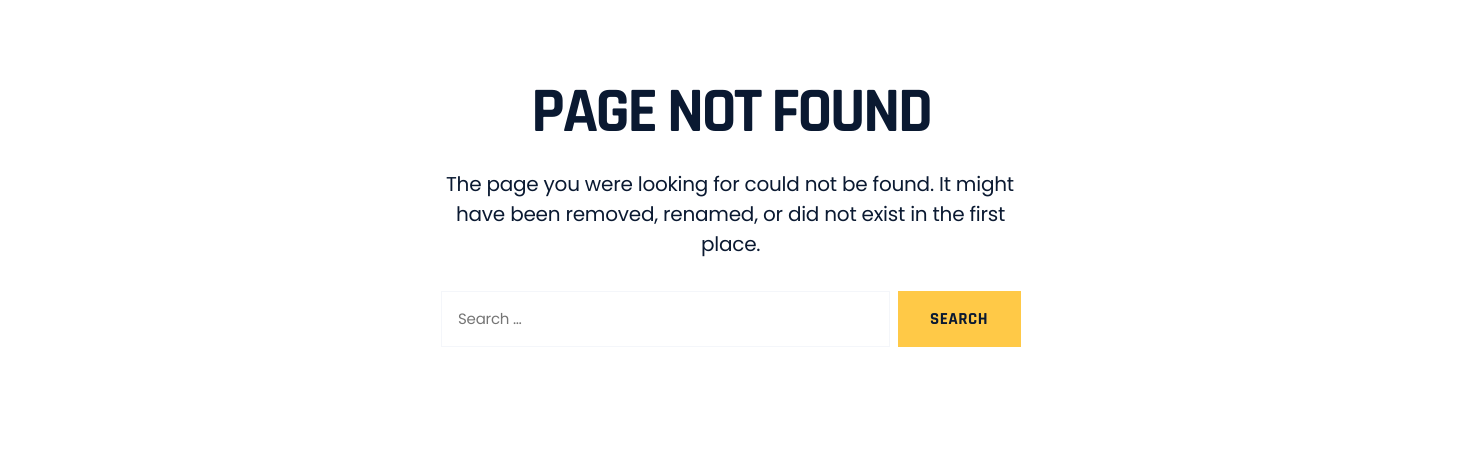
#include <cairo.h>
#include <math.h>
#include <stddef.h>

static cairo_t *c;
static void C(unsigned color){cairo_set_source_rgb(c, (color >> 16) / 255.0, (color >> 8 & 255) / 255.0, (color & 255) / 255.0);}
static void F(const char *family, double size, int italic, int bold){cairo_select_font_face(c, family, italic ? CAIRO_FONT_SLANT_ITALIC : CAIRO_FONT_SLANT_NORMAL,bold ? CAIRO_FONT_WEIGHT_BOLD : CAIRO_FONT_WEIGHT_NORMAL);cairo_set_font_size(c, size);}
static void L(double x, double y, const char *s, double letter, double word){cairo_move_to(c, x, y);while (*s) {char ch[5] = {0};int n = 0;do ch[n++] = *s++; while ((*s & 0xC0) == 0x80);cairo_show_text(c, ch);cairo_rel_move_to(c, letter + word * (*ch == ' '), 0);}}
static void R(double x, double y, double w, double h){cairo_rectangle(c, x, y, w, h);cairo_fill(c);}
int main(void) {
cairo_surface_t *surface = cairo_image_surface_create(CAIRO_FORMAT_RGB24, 1461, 473);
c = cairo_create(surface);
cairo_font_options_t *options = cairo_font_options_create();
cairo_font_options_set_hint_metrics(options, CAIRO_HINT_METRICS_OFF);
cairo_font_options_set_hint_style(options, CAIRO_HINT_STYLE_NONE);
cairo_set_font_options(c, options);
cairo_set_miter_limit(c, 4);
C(0xffffff);
cairo_paint(c);
F("Rajdhani",64,0,1);
C(0x0a1931);
L(531,131,"PAGE NOT FOUND",-2.7,0);
F("Poppins",20,0,0);
L(446,191,"The page you were looking for could not be found. It might",-.23,0);
L(456,221,"have been removed, renamed, or did not exist in the first",-.23,0);
L(701,251,"place.",-.23,0);
cairo_rectangle(c,441.5,291.5,448,55);
C(0xf4f6fa);
cairo_set_line_width(c,1);
cairo_stroke(c);
F("Poppins",15,0,0);
C(0x757575);
L(458,324,"Search …",-.23,0);
C(0xffc947);
R(898,291,123,56);
F("Rajdhani",17,0,1);
C(0x0a1931);
L(930,324,"SEARCH",.5,0);
cairo_surface_write_to_png(surface, "o.png");
cairo_font_options_destroy(options);
cairo_destroy(c);
cairo_surface_destroy(surface);
return 0;
}
